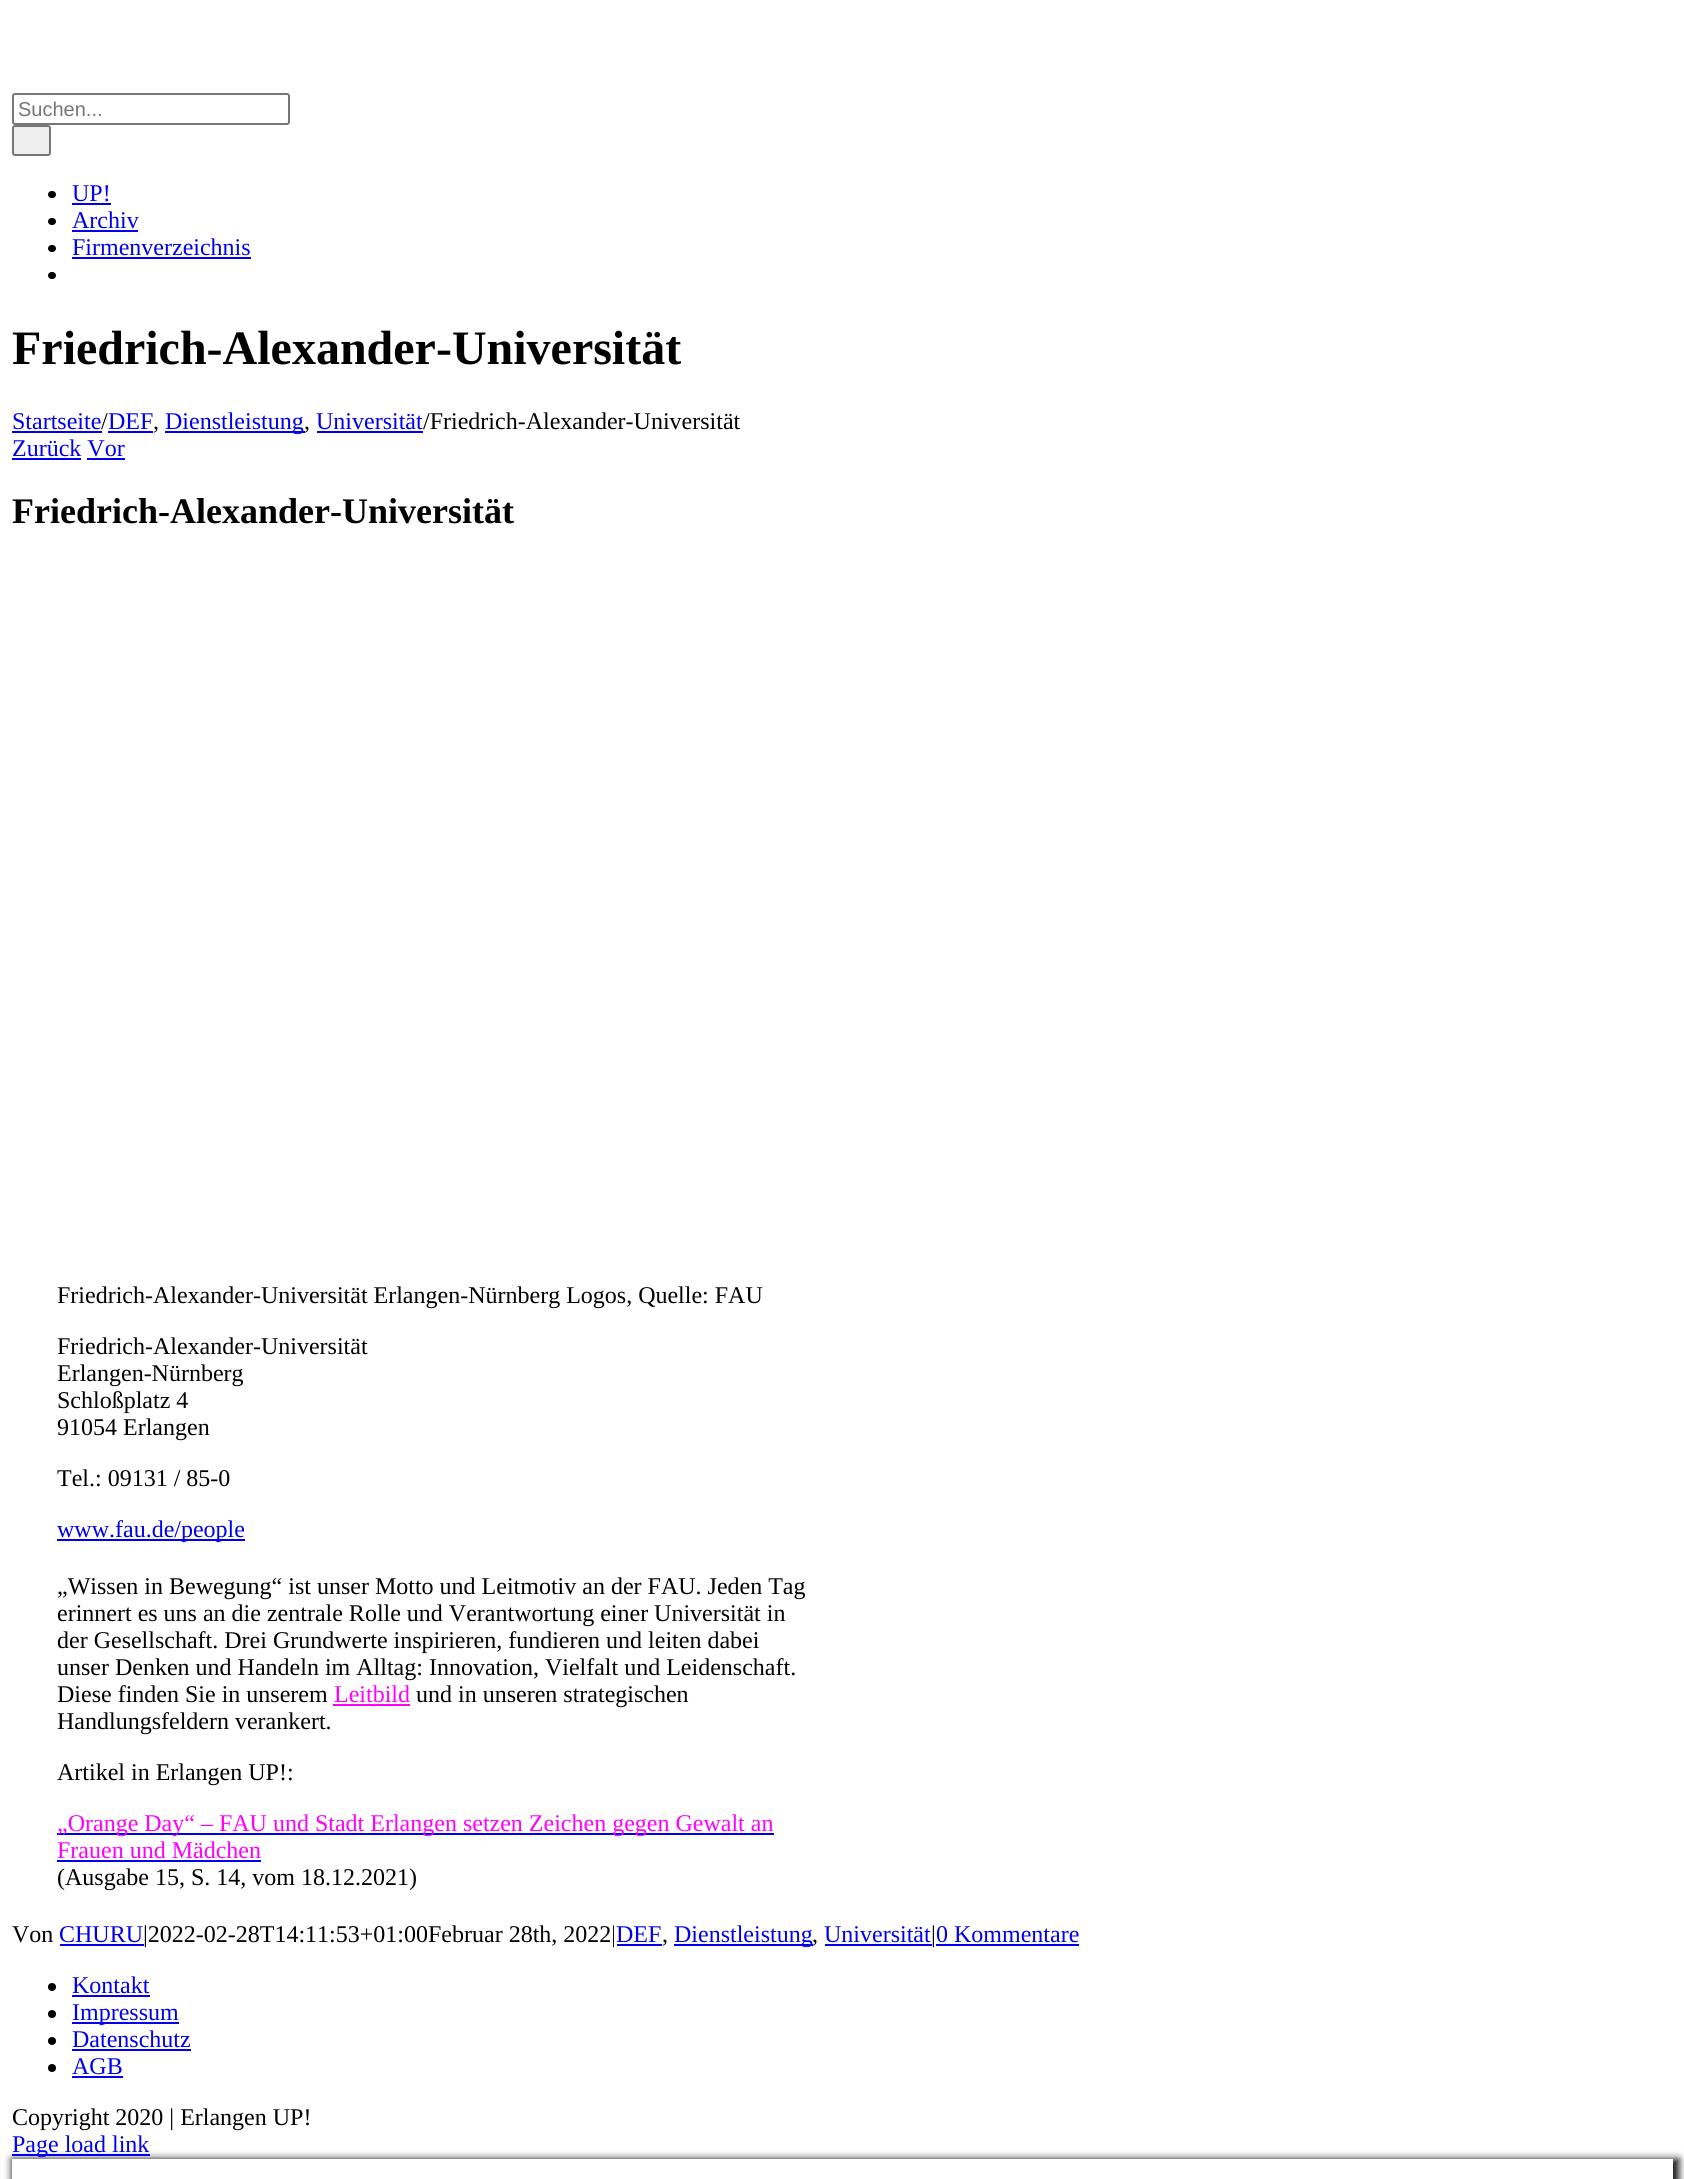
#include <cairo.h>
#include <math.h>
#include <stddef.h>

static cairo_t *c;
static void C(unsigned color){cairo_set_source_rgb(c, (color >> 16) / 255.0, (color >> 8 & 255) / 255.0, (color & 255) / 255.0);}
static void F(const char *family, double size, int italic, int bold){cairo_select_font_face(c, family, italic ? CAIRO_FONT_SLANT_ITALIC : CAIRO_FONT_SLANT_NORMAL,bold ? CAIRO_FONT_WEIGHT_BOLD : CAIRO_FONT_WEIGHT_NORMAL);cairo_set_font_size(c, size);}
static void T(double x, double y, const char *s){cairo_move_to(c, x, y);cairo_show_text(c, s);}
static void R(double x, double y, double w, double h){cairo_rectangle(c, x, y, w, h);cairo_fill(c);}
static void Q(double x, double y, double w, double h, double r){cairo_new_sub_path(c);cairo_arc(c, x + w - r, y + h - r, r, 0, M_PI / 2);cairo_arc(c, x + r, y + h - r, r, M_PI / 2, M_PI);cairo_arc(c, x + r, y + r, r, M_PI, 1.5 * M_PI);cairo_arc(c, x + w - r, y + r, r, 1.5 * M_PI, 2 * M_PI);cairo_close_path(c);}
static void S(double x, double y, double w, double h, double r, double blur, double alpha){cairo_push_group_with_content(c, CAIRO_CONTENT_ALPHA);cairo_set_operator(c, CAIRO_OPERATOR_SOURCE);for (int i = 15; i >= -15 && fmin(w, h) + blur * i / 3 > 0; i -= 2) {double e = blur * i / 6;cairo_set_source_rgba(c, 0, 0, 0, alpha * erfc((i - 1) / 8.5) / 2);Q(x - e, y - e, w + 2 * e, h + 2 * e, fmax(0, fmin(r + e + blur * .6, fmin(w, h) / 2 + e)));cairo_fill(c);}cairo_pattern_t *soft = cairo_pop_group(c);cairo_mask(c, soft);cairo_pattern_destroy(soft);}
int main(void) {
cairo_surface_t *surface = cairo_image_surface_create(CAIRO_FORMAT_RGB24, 1684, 2179);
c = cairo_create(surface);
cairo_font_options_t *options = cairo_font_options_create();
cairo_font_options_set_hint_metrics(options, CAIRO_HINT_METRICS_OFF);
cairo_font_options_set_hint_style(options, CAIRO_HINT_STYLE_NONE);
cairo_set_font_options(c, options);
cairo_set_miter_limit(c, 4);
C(0xffffff);
cairo_paint(c);
Q(13,94,276,30,2);
C(0x767676);
cairo_stroke(c);
F("Liberation Sans",20,0,0);
C(0x757575);
T(18,116,"Suchen...");
C(0xefefef);
Q(13,126,37,29,2);
cairo_fill_preserve(c);
C(0x767676);
cairo_stroke(c);
C(0x000000);
Q(48,191,8,7,3.5);
cairo_fill(c);
F("Liberation Serif",24,0,0);
C(0x0000ee);
T(72,201,"UP!");
R(72,203,39,2);
C(0x000000);
Q(48,218,8,7,3.5);
cairo_fill(c);
C(0x0000ee);
T(72,228,"Archiv");
R(72,230,66,2);
C(0x000000);
Q(48,245,8,7,3.5);
cairo_fill(c);
C(0x0000ee);
T(72,255,"Firmenverzeichnis");
R(72,257,179,2);
C(0x000000);
Q(48,272,8,7,3.5);
cairo_fill(c);
F("Liberation Serif",48,0,1);
T(12,364,"Friedrich-Alexander-Universität");
F("Liberation Serif",24,0,0);
C(0x0000ee);
T(12,429,"Startseite");
R(12,431,90,2);
C(0x000000);
T(101,429,"/");
C(0x0000ee);
T(108,429,"DEF");
R(108,431,45,2);
C(0x000000);
T(153,429,",");
C(0x0000ee);
R(165,431,140,2);
T(165,429,"Dienstleistung");
C(0x000000);
T(304,429,",");
C(0x0000ee);
T(316,429,"Universität");
R(317,431,106,2);
C(0x000000);
T(423,429,"/Friedrich-Alexander-Universität");
C(0x0000ee);
T(12,456,"Zurück Vor");
R(12,458,69,2);
R(87,458,38,2);
F("Liberation Serif",36,0,1);
C(0x000000);
T(12,523,"Friedrich-Alexander-Universität");
F("Liberation Serif",24,0,0);
T(57,1303,"Friedrich-Alexander-Universität Erlangen-Nürnberg Logos, Quelle: FAU");
T(57,1354,"Friedrich-Alexander-Universität");
T(57,1381,"Erlangen-Nürnberg");
T(57,1408,"Schloßplatz 4");
T(57,1435,"91054 Erlangen");
T(57,1486,"Tel.: 09131 / 85-0");
C(0x0000ee);
R(57,1539,188,2);
T(57,1537,"www.fau.de/people");
C(0x000000);
T(57,1594,"„Wissen in Bewegung“ ist unser Motto und Leitmotiv an der FAU. Jeden Tag");
T(57,1621,"erinnert es uns an die zentrale Rolle und Verantwortung einer Universität in");
T(57,1648,"der Gesellschaft. Drei Grundwerte inspirieren, fundieren und leiten dabei");
T(57,1675,"unser Denken und Handeln im Alltag: Innovation, Vielfalt und Leidenschaft.");
T(57,1702,"Diese finden Sie in unserem");
C(0xff00ff);
T(334,1702,"Leitbild");
R(333,1704,77,2);
C(0x000000);
T(416,1702,"und in unseren strategischen");
T(57,1729,"Handlungsfeldern verankert.");
T(57,1780,"Artikel in Erlangen UP!:");
C(0x0000ee);
R(57,1833,717,2);
C(0xff00ff);
T(57,1831,"„Orange Day“ – FAU und Stadt Erlangen setzen Zeichen gegen Gewalt an");
T(57,1858,"Frauen und Mädchen");
C(0x0000ee);
R(57,1860,204,2);
C(0x000000);
T(57,1885,"(Ausgabe 15, S. 14, vom 18.12.2021)");
T(12,1942,"Von");
C(0x0000ee);
T(59,1942,"CHURU");
R(60,1944,84,2);
C(0x000000);
T(143,1942,"|2022-02-28T14:11:53+01:00Februar 28th, 2022|");
C(0x0000ee);
T(616,1942,"DEF");
R(617,1944,45,2);
C(0x000000);
T(662,1942,",");
C(0x0000ee);
R(674,1944,139,2);
T(674,1942,"Dienstleistung");
C(0x000000);
T(812,1942,",");
C(0x0000ee);
T(824,1942,"Universität");
R(825,1944,107,2);
C(0x000000);
T(931,1942,"|");
C(0x0000ee);
T(936,1942,"0 Kommentare");
R(936,1944,143,2);
C(0x000000);
cairo_new_path(c);
cairo_arc(c,52,1987,4,0,2 * M_PI);
cairo_fill(c);
C(0x0000ee);
T(72,1993,"Kontakt");
R(72,1995,78,2);
C(0x000000);
cairo_new_path(c);
cairo_arc(c,52,2014,4,0,2 * M_PI);
cairo_fill(c);
C(0x0000ee);
R(72,2022,107,2);
T(72,2020,"Impressum");
C(0x000000);
cairo_new_path(c);
cairo_arc(c,52,2041,4,0,2 * M_PI);
cairo_fill(c);
C(0x0000ee);
T(72,2047,"Datenschutz");
R(72,2049,119,2);
C(0x000000);
cairo_new_path(c);
cairo_arc(c,52,2068,4,0,2 * M_PI);
cairo_fill(c);
C(0x0000ee);
T(72,2074,"AGB");
R(72,2076,51,2);
C(0x000000);
T(12,2125,"Copyright 2020 | Erlangen UP!");
cairo_save(c);
cairo_set_fill_rule(c,CAIRO_FILL_RULE_EVEN_ODD);
cairo_new_path(c);
cairo_move_to(c,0,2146);
cairo_line_to(c,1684,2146);
cairo_line_to(c,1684,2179);
cairo_line_to(c,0,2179);
cairo_close_path(c);
cairo_move_to(c,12,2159);
cairo_line_to(c,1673,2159);
cairo_line_to(c,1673,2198);
cairo_line_to(c,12,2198);
cairo_close_path(c);
cairo_clip(c);
C(0x161616);
S(12,2159,1667,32,0,4,1);
cairo_restore(c);
C(0x0000ee);
R(12,2154,138,2);
T(12,2152,"Page load link");
cairo_surface_write_to_png(surface, "o.png");
cairo_font_options_destroy(options);
cairo_destroy(c);
cairo_surface_destroy(surface);
return 0;
}
